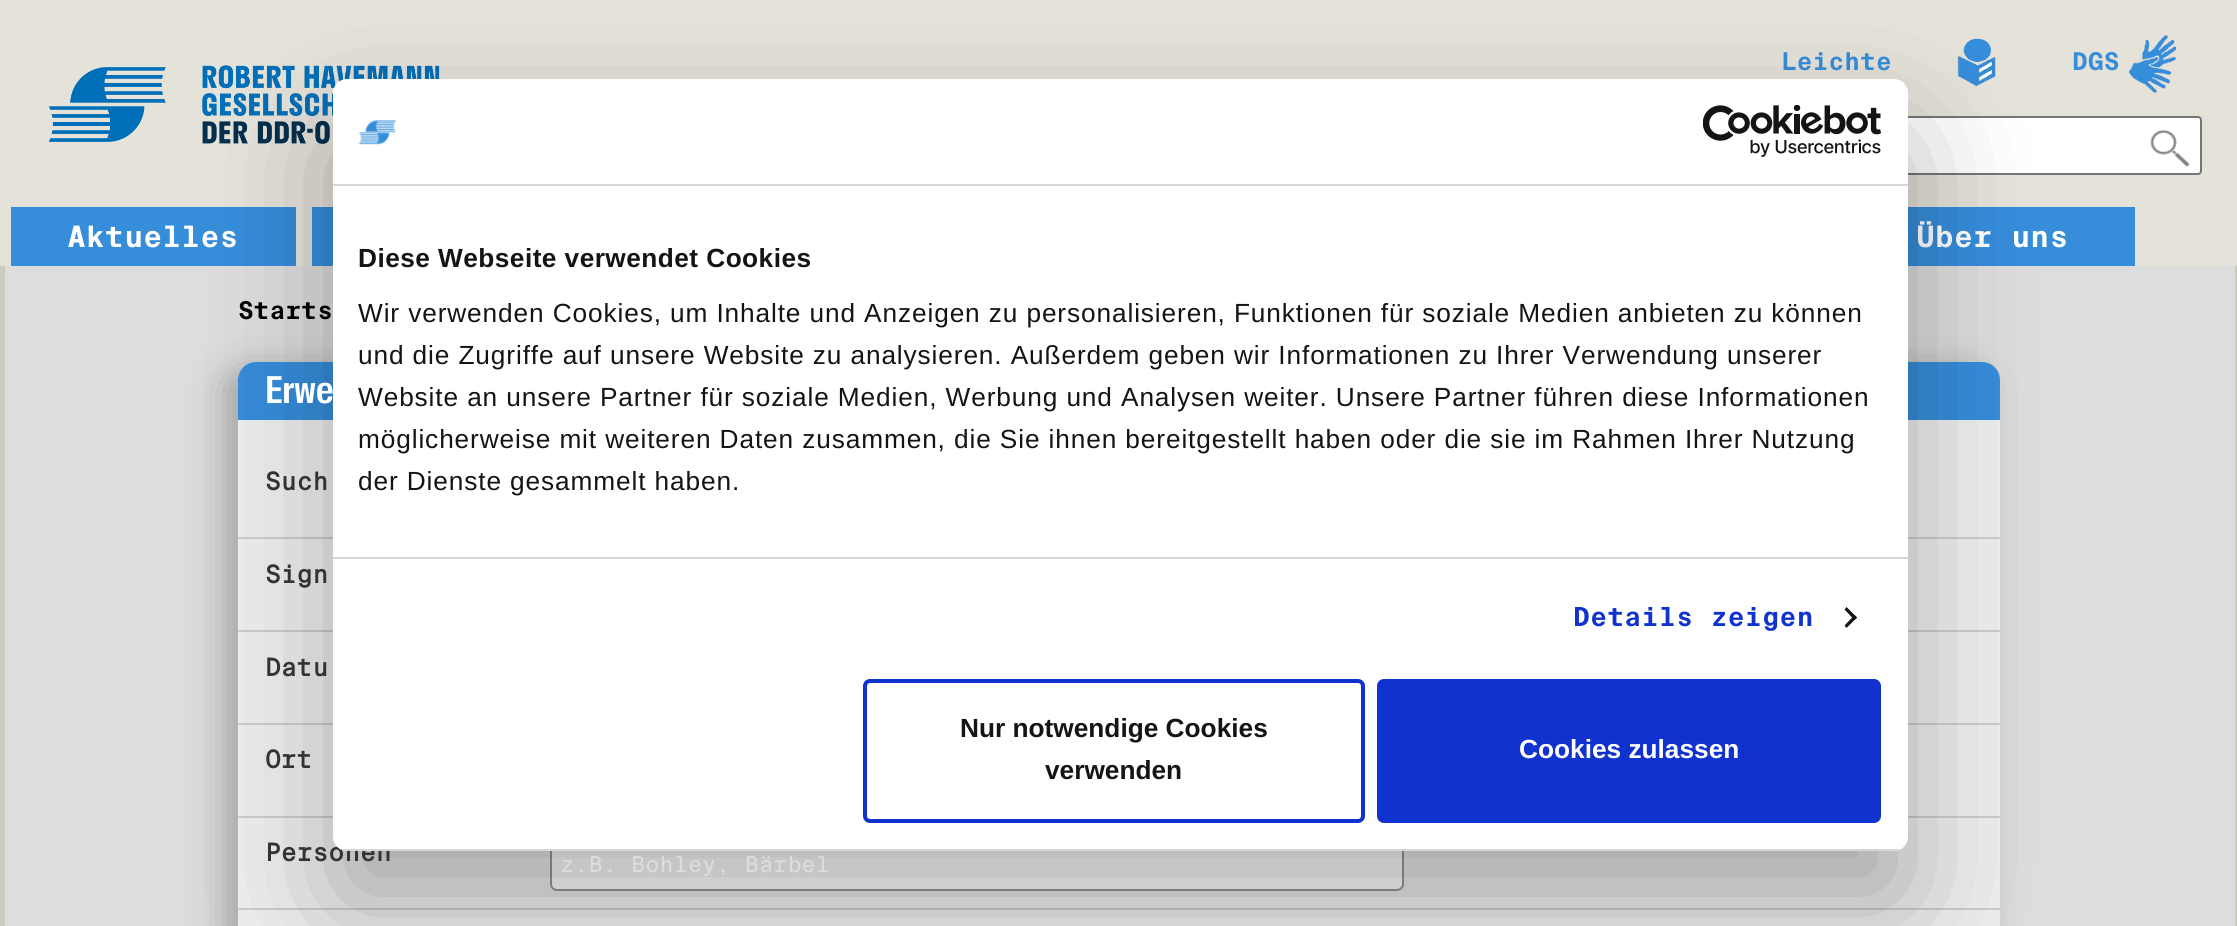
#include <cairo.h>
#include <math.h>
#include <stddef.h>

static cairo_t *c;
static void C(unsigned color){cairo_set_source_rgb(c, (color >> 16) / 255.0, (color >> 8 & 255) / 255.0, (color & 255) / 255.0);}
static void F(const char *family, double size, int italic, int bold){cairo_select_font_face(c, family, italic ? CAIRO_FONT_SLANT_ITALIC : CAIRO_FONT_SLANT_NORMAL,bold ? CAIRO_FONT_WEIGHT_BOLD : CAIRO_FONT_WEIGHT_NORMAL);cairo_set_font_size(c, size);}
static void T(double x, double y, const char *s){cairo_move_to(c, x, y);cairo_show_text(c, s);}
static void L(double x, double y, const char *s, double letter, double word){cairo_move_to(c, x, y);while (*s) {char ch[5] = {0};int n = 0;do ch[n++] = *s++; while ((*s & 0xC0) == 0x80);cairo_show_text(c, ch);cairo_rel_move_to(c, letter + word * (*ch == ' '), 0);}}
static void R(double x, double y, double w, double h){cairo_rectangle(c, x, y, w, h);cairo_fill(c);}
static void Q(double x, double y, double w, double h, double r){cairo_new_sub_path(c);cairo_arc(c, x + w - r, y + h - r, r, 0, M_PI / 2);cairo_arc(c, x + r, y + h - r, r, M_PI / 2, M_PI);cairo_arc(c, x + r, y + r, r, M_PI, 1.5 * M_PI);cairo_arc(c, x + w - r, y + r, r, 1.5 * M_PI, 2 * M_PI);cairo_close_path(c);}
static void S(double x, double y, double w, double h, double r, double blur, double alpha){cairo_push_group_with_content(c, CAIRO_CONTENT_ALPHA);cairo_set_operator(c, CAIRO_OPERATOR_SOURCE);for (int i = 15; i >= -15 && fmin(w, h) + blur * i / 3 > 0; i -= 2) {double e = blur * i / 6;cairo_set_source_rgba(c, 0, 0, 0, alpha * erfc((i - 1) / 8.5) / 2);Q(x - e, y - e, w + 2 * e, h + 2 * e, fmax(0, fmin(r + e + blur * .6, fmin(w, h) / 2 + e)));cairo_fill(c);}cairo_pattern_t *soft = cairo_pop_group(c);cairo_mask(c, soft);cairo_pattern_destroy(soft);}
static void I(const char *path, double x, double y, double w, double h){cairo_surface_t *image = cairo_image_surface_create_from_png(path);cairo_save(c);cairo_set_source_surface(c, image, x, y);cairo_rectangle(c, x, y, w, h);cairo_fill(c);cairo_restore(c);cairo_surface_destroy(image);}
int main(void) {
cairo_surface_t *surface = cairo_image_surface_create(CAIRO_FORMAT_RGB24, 2237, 926);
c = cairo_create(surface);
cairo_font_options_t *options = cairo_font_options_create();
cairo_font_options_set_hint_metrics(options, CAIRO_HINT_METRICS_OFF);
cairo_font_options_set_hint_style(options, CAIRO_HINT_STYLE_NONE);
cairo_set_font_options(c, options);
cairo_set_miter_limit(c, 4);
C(0xceccbd);
cairo_paint(c);
C(0xe4e2d9);
R(0,0,2237,266);
I("1.png",1957,38,39,48);
F("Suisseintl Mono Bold",24.5,0,1);
C(0x368dda);
T(1781,70,"Leichte");
I("2.png",2129,35,48,58);
T(2072,70,"DGS");
C(0xffffff);
Q(1506,117,695,57,3);
cairo_fill_preserve(c);
C(0x767676);
cairo_stroke(c);
I("3.png",2150,130,40,37);
I("4.png",49,65,391,79);
C(0x368dda);
R(11,207,285,59);
F("Suisseintl Mono Bold",29.5,0,1);
C(0xffffff);
T(67,247,"Aktuelles");
C(0x368dda);
R(312,207,21,59);
R(1908,207,227,59);
C(0xffffff);
T(1916,247,"Über uns");
C(0xdddddd);
R(5,266,2230,660);
C(0x000000);
S(224,369,1762,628,18,17.5,.25);
C(0xeeeeee);
Q(238,362,1762,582,18);
cairo_fill(c);
C(0x368dda);
cairo_new_path(c);
cairo_move_to(c,256,362);
cairo_line_to(c,1982,362);
cairo_curve_to(c,1992,362,2000,370,2000,380);
cairo_line_to(c,2000,420);
cairo_line_to(c,238,420);
cairo_line_to(c,238,380);
cairo_curve_to(c,238,370,246,362,256,362);
cairo_close_path(c);
cairo_fill(c);
C(0xcccccc);
R(238,537,1762,2);
R(238,630,1762,2);
R(238,723,1762,2);
R(238,816,1762,2);
R(238,908,1762,2);
C(0xffffff);
Q(551,836,852,54,6);
cairo_fill_preserve(c);
C(0x999999);
cairo_stroke(c);
C(0x000000);
S(333,135,1575,772,14,59.5,.3);
F("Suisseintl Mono",24.5,0,1);
C(0x333333);
T(265,861,"Personen");
C(0xffffff);
Q(333,79,1575,772,14);
cairo_fill(c);
C(0xd6d6d6);
R(333,184,1575,2);
I("5.png",358,119,39,26);
I("6.png",1703,105,178,52);
R(333,557,1575,2);
F("Liberation Sans",26.25,0,1);
C(0x141414);
L(358,267,"Diese Webseite verwendet Cookies",.45,0);
F("Liberation Sans",26.25,0,0);
L(358,322,"Wir verwenden Cookies, um Inhalte und Anzeigen zu personalisieren, Funktionen für soziale Medien anbieten zu können",.88,0);
L(358,364,"und die Zugriffe auf unsere Website zu analysieren. Außerdem geben wir Informationen zu Ihrer Verwendung unserer",.88,0);
L(358,406,"Website an unsere Partner für soziale Medien, Werbung und Analysen weiter. Unsere Partner führen diese Informationen",.88,0);
L(358,448,"möglicherweise mit weiteren Daten zusammen, die Sie ihnen bereitgestellt haben oder die sie im Rahmen Ihrer Nutzung",.88,0);
L(358,490,"der Dienste gesammelt haben.",.88,0);
F("Suisseintl Mono Bold",26.25,0,1);
C(0x1032cf);
L(1573,626,"Details zeigen",.25,0);
C(0x141414);
cairo_new_path(c);
cairo_move_to(c,1846.5,607);
cairo_line_to(c,1857,617.5);
cairo_line_to(c,1854.5,620);
cairo_line_to(c,1844.5,609.5);
cairo_close_path(c);
cairo_fill(c);
cairo_new_path(c);
cairo_move_to(c,1854.5,615);
cairo_line_to(c,1857,617.5);
cairo_line_to(c,1846.5,628);
cairo_line_to(c,1844.5,625.5);
cairo_close_path(c);
cairo_fill(c);
cairo_save(c);
Q(333,79,1575,772,14);
cairo_clip(c);
C(0xd6d6d6);
R(333,849,1575,2);
cairo_restore(c);
Q(865,681,498,140,5);
C(0x1032cf);
cairo_set_line_width(c,4);
cairo_stroke(c);
F("Liberation Sans",26.25,0,1);
C(0x141414);
T(960,737,"Nur notwendige Cookies");
T(1045,779,"verwenden");
C(0x1032cf);
Q(1379,681,500,140,5);
cairo_fill_preserve(c);
cairo_stroke(c);
C(0xffffff);
T(1519,758,"Cookies zulassen");
F("Suisseintl Mono Bold",24.5,0,1);
C(0x000000);
T(238,319,"Starts");
F("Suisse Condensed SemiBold",37,0,0);
C(0xffffff);
T(265,403,"Erwe");
F("Suisseintl Mono",24.5,0,1);
C(0x333333);
T(265,490,"Such");
T(265,583,"Sign");
T(265,676,"Datu");
T(265,768,"Ort");
F("Suisseintl Mono",22,0,0);
C(0xdddddd);
T(560,872,"z.B. Bohley, Bärbel");
cairo_surface_write_to_png(surface, "o.png");
cairo_font_options_destroy(options);
cairo_destroy(c);
cairo_surface_destroy(surface);
return 0;
}
